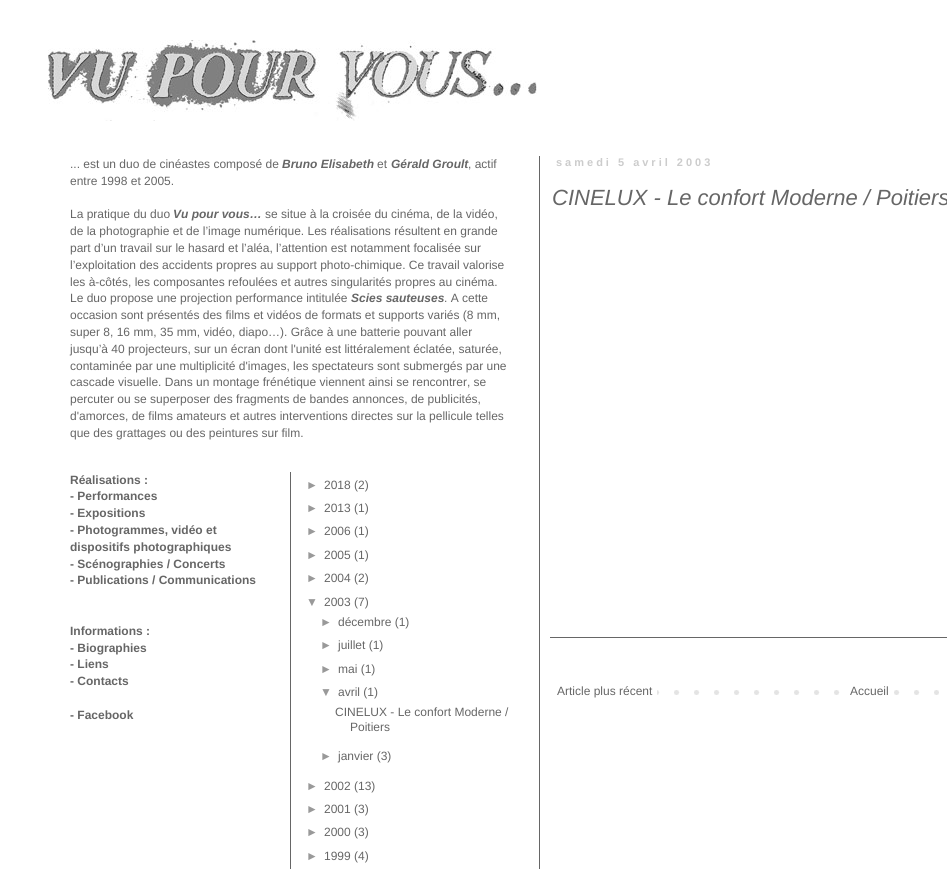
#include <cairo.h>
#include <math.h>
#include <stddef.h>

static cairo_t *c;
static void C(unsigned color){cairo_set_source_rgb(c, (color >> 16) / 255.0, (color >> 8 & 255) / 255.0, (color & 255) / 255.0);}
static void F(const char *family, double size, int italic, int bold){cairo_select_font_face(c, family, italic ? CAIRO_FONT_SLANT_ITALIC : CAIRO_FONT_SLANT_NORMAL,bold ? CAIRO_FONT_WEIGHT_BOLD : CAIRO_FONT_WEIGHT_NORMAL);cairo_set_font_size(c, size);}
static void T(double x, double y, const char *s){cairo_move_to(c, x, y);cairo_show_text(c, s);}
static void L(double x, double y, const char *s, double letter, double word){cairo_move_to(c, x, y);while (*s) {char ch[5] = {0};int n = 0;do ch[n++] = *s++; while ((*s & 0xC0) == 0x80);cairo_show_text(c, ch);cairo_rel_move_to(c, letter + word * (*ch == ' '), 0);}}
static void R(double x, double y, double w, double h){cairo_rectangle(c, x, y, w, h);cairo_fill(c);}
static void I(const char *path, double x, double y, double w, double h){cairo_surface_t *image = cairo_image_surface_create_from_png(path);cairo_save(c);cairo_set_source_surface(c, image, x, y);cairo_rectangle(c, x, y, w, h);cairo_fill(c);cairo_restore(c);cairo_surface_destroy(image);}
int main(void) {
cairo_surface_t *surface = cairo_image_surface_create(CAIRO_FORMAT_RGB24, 947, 885);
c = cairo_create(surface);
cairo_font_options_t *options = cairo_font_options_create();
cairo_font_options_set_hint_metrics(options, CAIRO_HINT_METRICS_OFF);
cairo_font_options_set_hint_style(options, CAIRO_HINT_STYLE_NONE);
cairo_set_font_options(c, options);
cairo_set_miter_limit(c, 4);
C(0xffffff);
cairo_paint(c);
I("1.png",48,40,489,81);
C(0x666666);
R(539,156,1,713);
F("Liberation Sans",12,0,0);
T(70,168,"... est un duo de cinéastes composé de");
F("Liberation Sans",12,1,1);
T(282,168,"Bruno Elisabeth");
F("Liberation Sans",12,0,0);
T(377,168,"et");
F("Liberation Sans",12,1,1);
T(391,168,"Gérald Groult");
F("Liberation Sans",12,0,0);
T(468,168,", actif");
T(70,185,"entre 1998 et 2005.");
T(70,218,"La pratique du duo");
F("Liberation Sans",12,1,1);
T(173,218,"Vu pour vous…");
F("Liberation Sans",12,0,0);
T(265,218,"se situe à la croisée du cinéma, de la vidéo,");
T(70,235,"de la photographie et de l’image numérique. Les réalisations résultent en grande");
T(70,252,"part d’un travail sur le hasard et l’aléa, l’attention est notamment focalisée sur");
T(70,269,"l’exploitation des accidents propres au support photo-chimique. Ce travail valorise");
T(70,286,"les à-côtés, les composantes refoulées et autres singularités propres au cinéma.");
T(70,302,"Le duo propose une projection performance intitulée");
F("Liberation Sans",12,1,1);
T(351,302,"Scies sauteuses");
F("Liberation Sans",12,0,0);
T(444,302,". A cette");
T(70,319,"occasion sont présentés des films et vidéos de formats et supports variés (8 mm,");
T(70,336,"super 8, 16 mm, 35 mm, vidéo, diapo…). Grâce à une batterie pouvant aller");
T(70,353,"jusqu’à 40 projecteurs, sur un écran dont l'unité est littéralement éclatée, saturée,");
T(70,370,"contaminée par une multiplicité d'images, les spectateurs sont submergés par une");
T(70,386,"cascade visuelle. Dans un montage frénétique viennent ainsi se rencontrer, se");
T(70,403,"percuter ou se superposer des fragments de bandes annonces, de publicités,");
T(70,420,"d'amorces, de films amateurs et autres interventions directes sur la pellicule telles");
T(70,437,"que des grattages ou des peintures sur film.");
F("Liberation Sans",12,0,1);
T(70,484,"Réalisations :");
T(70,500,"- Performances");
T(70,517,"- Expositions");
T(70,534,"- Photogrammes, vidéo et");
T(70,551,"dispositifs photographiques");
T(70,568,"- Scénographies / Concerts");
T(70,584,"- Publications / Communications");
T(70,635,"Informations :");
T(70,652,"- Biographies");
T(70,668,"- Liens");
T(70,685,"- Contacts");
T(70,719,"- Facebook");
R(290,472,1,397);
F("Liberation Sans",12,0,0);
C(0x999999);
T(306,489,"►");
C(0x666666);
T(324,489,"2018 (2)");
C(0x999999);
T(306,512,"►");
C(0x666666);
T(324,512,"2013 (1)");
C(0x999999);
T(306,535,"►");
C(0x666666);
T(324,535,"2006 (1)");
C(0x999999);
T(306,559,"►");
C(0x666666);
T(324,559,"2005 (1)");
C(0x999999);
T(306,582,"►");
C(0x666666);
T(324,582,"2004 (2)");
C(0x999999);
T(306,606,"▼");
C(0x666666);
T(324,606,"2003 (7)");
C(0x999999);
T(320,626,"►");
C(0x666666);
T(338,626,"décembre (1)");
C(0x999999);
T(320,649,"►");
C(0x666666);
T(338,649,"juillet (1)");
C(0x999999);
T(320,673,"►");
C(0x666666);
T(338,673,"mai (1)");
C(0x999999);
T(320,696,"▼");
C(0x666666);
T(338,696,"avril (1)");
T(335,716,"CINELUX - Le confort Moderne /");
T(350,731,"Poitiers");
C(0x999999);
T(320,760,"►");
C(0x666666);
T(338,760,"janvier (3)");
C(0x999999);
T(306,790,"►");
C(0x666666);
T(324,790,"2002 (13)");
C(0x999999);
T(306,813,"►");
C(0x666666);
T(324,813,"2001 (3)");
C(0x999999);
T(306,836,"►");
C(0x666666);
T(324,836,"2000 (3)");
C(0x999999);
T(306,860,"►");
C(0x666666);
T(324,860,"1999 (4)");
F("Liberation Sans",11,0,1);
C(0xcccccc);
L(556,166,"samedi 5 avril 2003",3,0);
F("Liberation Sans",22,1,0);
C(0x666666);
T(552,205,"CINELUX - Le confort Moderne / Poitiers");
R(550,637,397,1);
I("2.png",657,690,282,5);
F("Liberation Sans",12,0,0);
T(557,695,"Article plus récent");
C(0xffffff);
R(854,690,26,5);
C(0x666666);
T(850,695,"Accueil");
cairo_surface_write_to_png(surface, "o.png");
cairo_font_options_destroy(options);
cairo_destroy(c);
cairo_surface_destroy(surface);
return 0;
}
